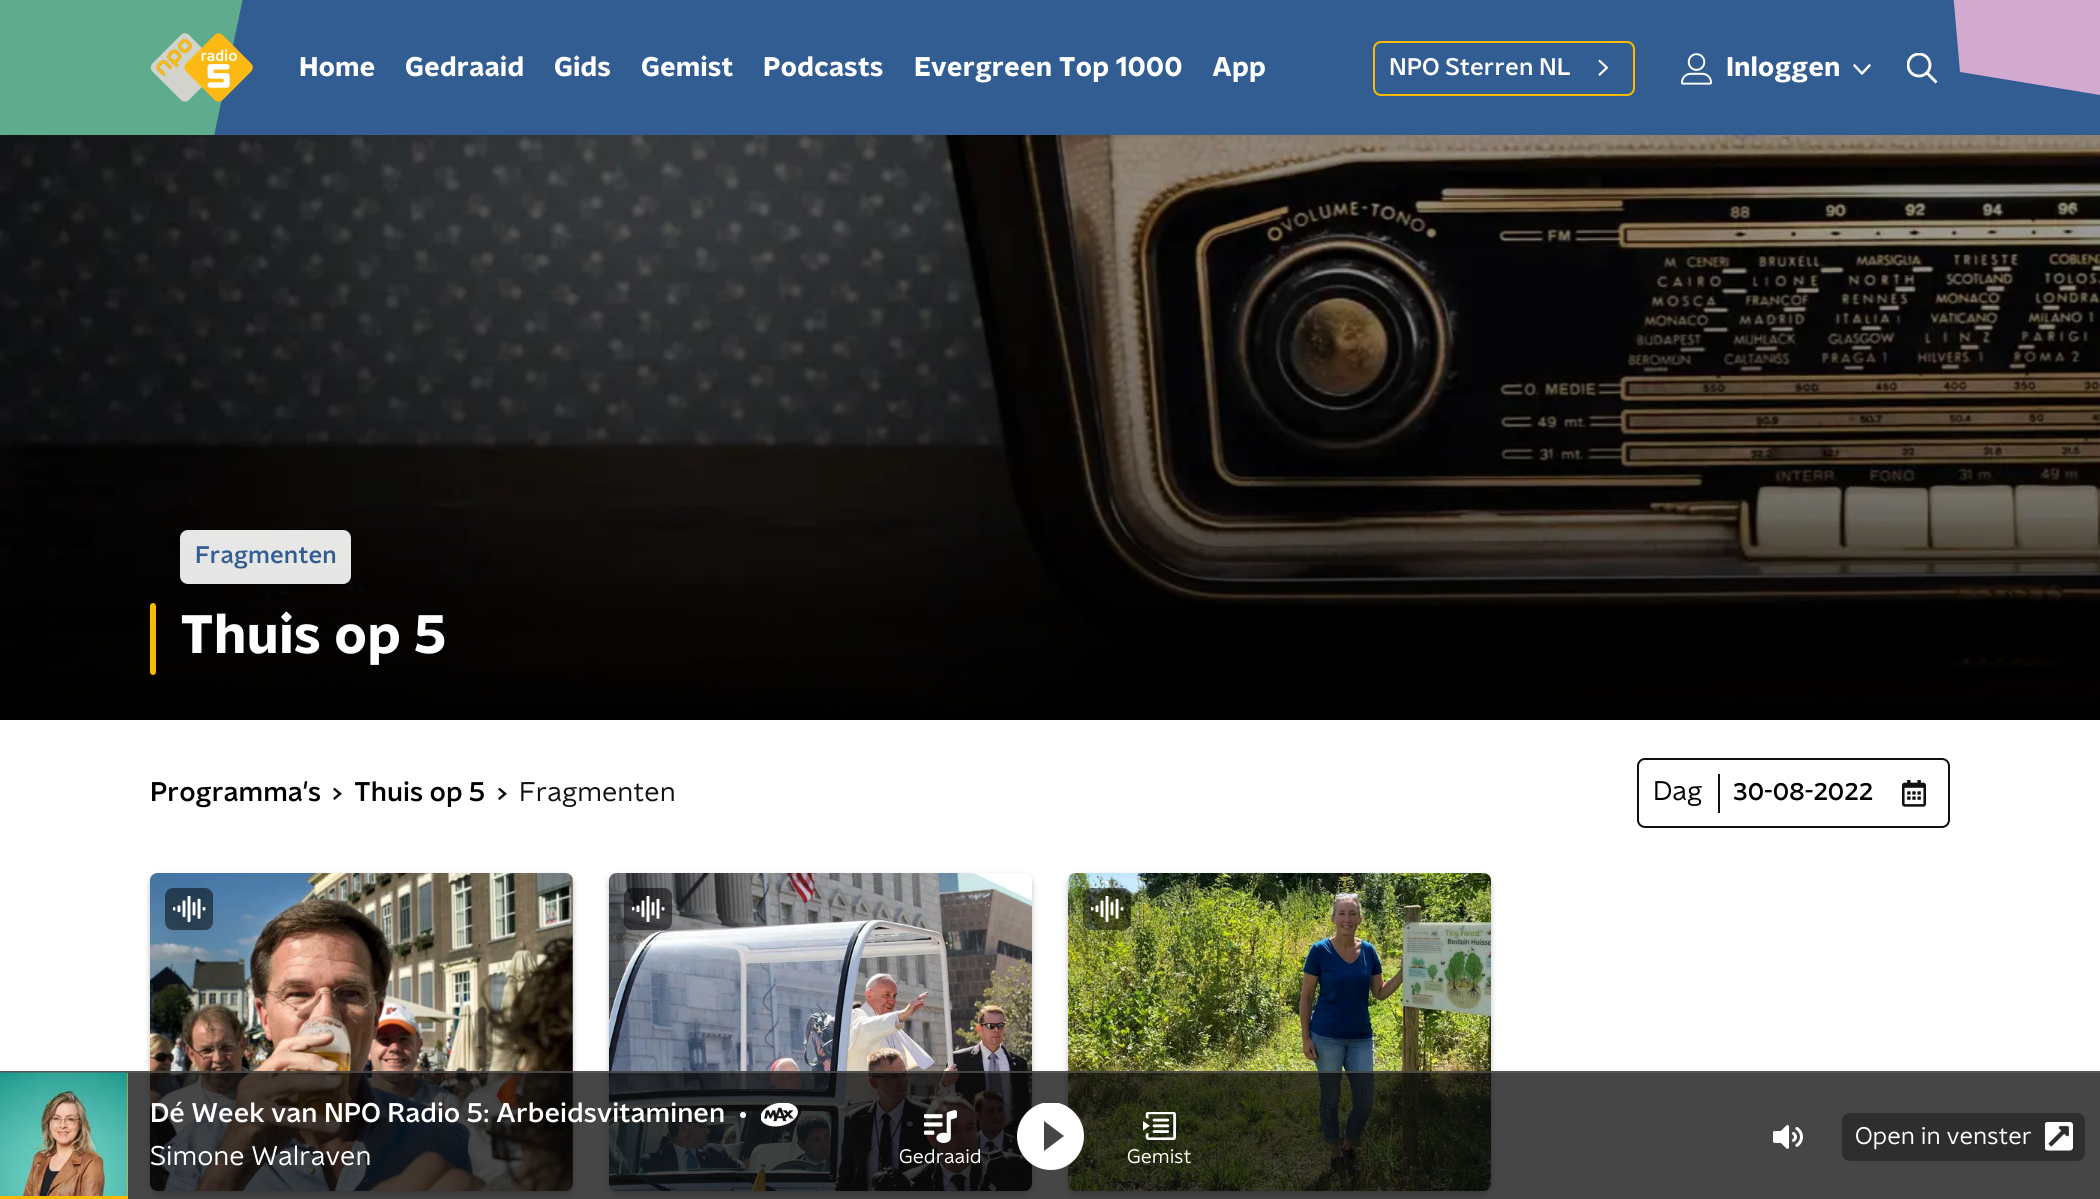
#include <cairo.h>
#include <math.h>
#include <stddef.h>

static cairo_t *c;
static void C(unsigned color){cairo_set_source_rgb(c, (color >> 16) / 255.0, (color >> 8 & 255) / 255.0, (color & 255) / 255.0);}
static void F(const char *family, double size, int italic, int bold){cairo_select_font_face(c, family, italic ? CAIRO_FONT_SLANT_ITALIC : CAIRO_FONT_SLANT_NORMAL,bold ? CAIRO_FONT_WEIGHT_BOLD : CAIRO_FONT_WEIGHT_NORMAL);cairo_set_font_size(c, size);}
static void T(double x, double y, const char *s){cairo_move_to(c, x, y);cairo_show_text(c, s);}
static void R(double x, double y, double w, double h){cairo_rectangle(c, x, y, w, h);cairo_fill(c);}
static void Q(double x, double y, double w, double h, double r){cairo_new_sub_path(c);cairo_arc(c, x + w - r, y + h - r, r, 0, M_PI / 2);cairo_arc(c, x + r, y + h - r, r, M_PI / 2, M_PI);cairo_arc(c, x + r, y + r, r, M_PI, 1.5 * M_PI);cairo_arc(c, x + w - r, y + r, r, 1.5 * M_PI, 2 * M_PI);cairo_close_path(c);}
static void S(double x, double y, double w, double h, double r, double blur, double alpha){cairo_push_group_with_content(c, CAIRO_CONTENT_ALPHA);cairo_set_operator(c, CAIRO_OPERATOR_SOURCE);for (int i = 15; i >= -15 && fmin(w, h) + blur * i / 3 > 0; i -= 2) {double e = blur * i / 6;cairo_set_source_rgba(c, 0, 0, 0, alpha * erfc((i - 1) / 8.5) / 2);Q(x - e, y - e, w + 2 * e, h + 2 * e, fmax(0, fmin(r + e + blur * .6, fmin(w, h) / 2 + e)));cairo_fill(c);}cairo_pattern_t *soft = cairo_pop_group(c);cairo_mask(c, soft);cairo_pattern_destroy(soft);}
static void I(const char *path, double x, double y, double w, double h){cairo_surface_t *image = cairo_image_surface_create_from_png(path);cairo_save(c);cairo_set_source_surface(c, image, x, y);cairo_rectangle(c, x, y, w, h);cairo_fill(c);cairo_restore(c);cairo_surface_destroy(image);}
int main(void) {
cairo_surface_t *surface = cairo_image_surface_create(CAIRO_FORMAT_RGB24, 2100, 1199);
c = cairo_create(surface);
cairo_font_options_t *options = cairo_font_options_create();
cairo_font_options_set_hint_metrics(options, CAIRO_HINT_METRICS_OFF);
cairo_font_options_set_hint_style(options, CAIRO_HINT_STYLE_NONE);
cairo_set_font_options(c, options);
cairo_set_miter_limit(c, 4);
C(0xffffff);
cairo_paint(c);
C(0x325d92);
R(214,0,1886,135);
cairo_save(c);
cairo_rectangle(c,0,0,266,135);
cairo_clip(c);
C(0x5eab8d);
cairo_new_path(c);
cairo_move_to(c,266,-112);
cairo_line_to(c,-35,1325);
cairo_line_to(c,-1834,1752);
cairo_line_to(c,-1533,316);
cairo_close_path(c);
cairo_fill(c);
cairo_restore(c);
C(0xd2aad0);
cairo_new_path(c);
cairo_move_to(c,1960,72);
cairo_line_to(c,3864,385);
cairo_line_to(c,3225,-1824);
cairo_line_to(c,1764,-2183);
cairo_close_path(c);
cairo_fill(c);
I("1.png",150,33,103,69);
F("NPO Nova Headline",27,0,1);
C(0xffffff);
T(299,76,"Home");
T(405,76,"Gedraaid");
T(554,76,"Gids");
T(641,76,"Gemist");
T(763,76,"Podcasts");
T(914,76,"Evergreen Top 1000");
T(1212,76,"App");
Q(1374,42,260,53,7);
C(0xfaba00);
cairo_stroke(c);
F("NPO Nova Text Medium",24,0,0);
C(0xffffff);
T(1389,75,"NPO Sterren NL");
I("2.png",1598,59,11,17);
I("3.png",1681,53,31,32);
F("NPO Nova Headline",27,0,1);
T(1726,76,"Inloggen");
I("4.png",1853,64,18,11);
cairo_save(c);
cairo_rectangle(c,1907,53,30,30);
cairo_clip(c);
cairo_arc(c,1919,65,11,0,2 * M_PI);
cairo_set_line_width(c,2.9);
cairo_stroke(c);
cairo_restore(c);
cairo_new_path(c);
cairo_move_to(c,1927,73);
cairo_line_to(c,1935.5,81.5);
cairo_set_line_width(c,2.9);
cairo_set_line_cap(c,CAIRO_LINE_CAP_SQUARE);
cairo_stroke(c);
I("5.png",0,135,2100,585);
cairo_set_source_rgba(c,1,1,1,0.9);
Q(180,530,171,54,8);
cairo_fill(c);
F("NPO Nova Text Medium",24,0,0);
C(0x325d92);
T(195,563,"Fragmenten");
C(0xfaba00);
Q(150,603,6,72,3);
cairo_fill(c);
F("NPO Nova Headline",54,0,1);
C(0xffffff);
T(180,653,"Thuis op 5");
F("NPO Nova Text Medium",27,0,0);
C(0x000000);
T(150,801,"Programma's");
I("6.png",333,788,9,12);
T(354,801,"Thuis op 5");
I("6.png",498,788,9,12);
F("NPO Nova Text",27,0,0);
C(0x101010);
T(519,801,"Fragmenten");
Q(1638,759,311,68,7);
cairo_set_line_width(c,2);
cairo_set_line_cap(c,CAIRO_LINE_CAP_BUTT);
cairo_stroke(c);
R(1718,774,2,39);
C(0x000000);
T(1653,800,"Dag");
F("NPO Nova Text Medium",24,0,0);
T(1733,800,"30-08-2022");
I("7.png",1902,780,24,27);
C(0x000000);
S(150,876,423,318,8,3,.25);
I("8.png",150,873,423,318);
cairo_set_source_rgba(c,0,0,0,0.5);
Q(165,888,48,42,8);
cairo_fill(c);
I("9.png",173,896,33,27);
C(0x000000);
S(609,876,423,318,8,3,.25);
I("10.png",609,873,423,318);
cairo_set_source_rgba(c,0,0,0,0.5);
Q(624,888,48,42,8);
cairo_fill(c);
I("11.png",632,896,33,27);
C(0x000000);
S(1068,876,423,318,8,3,.25);
I("12.png",1068,873,423,318);
cairo_set_source_rgba(c,0,0,0,0.5);
Q(1083,888,48,42,8);
cairo_fill(c);
I("13.png",1091,896,33,27);
cairo_set_source_rgba(c,0.035,0.035,0.035,0.75);
R(0,1071,2100,128);
cairo_set_source_rgba(c,0.373,0.373,0.373,0.65);
R(0,1071,2100,2);
C(0xfaba00);
R(127,1073,1,123);
I("14.png",0,1072,128,124);
R(0,1196,128,3);
F("NPO Nova Text Medium",27,0,0);
C(0xffffff);
T(150,1122,"Dé Week van NPO Radio 5: Arbeidsvitaminen");
cairo_new_path(c);
cairo_arc(c,743,1115,3,0,2 * M_PI);
cairo_fill(c);
I("15.png",761,1103,37,24);
F("NPO Nova Text",27,0,0);
T(150,1165,"Simone Walraven");
I("16.png",1773,1125,30,24);
C(0x2e2e2e);
Q(1842,1113,243,48,8);
cairo_fill(c);
F("NPO Nova Text",24,0,0);
C(0xffffff);
T(1855,1144,"Open in venster");
I("17.png",2045,1122,28,29);
I("18.png",924,1110,33,33);
F("NPO Nova Text",19.5,0,0);
T(899,1163,"Gedraaid");
cairo_save(c);
cairo_rectangle(c,1017,1103,68,67);
cairo_clip(c);
cairo_new_path(c);
cairo_move_to(c,1051,1102);
cairo_curve_to(c,1032,1102,1017,1118,1017,1136);
cairo_curve_to(c,1017,1155,1032,1170,1051,1170);
cairo_curve_to(c,1069,1170,1084,1155,1084,1136);
cairo_curve_to(c,1084,1118,1069,1102,1051,1102);
cairo_close_path(c);
cairo_move_to(c,1044,1151);
cairo_line_to(c,1044,1121);
cairo_line_to(c,1064,1136);
cairo_close_path(c);
cairo_fill(c);
cairo_restore(c);
I("19.png",1143,1112,33,28);
T(1127,1163,"Gemist");
cairo_surface_write_to_png(surface, "o.png");
cairo_font_options_destroy(options);
cairo_destroy(c);
cairo_surface_destroy(surface);
return 0;
}
